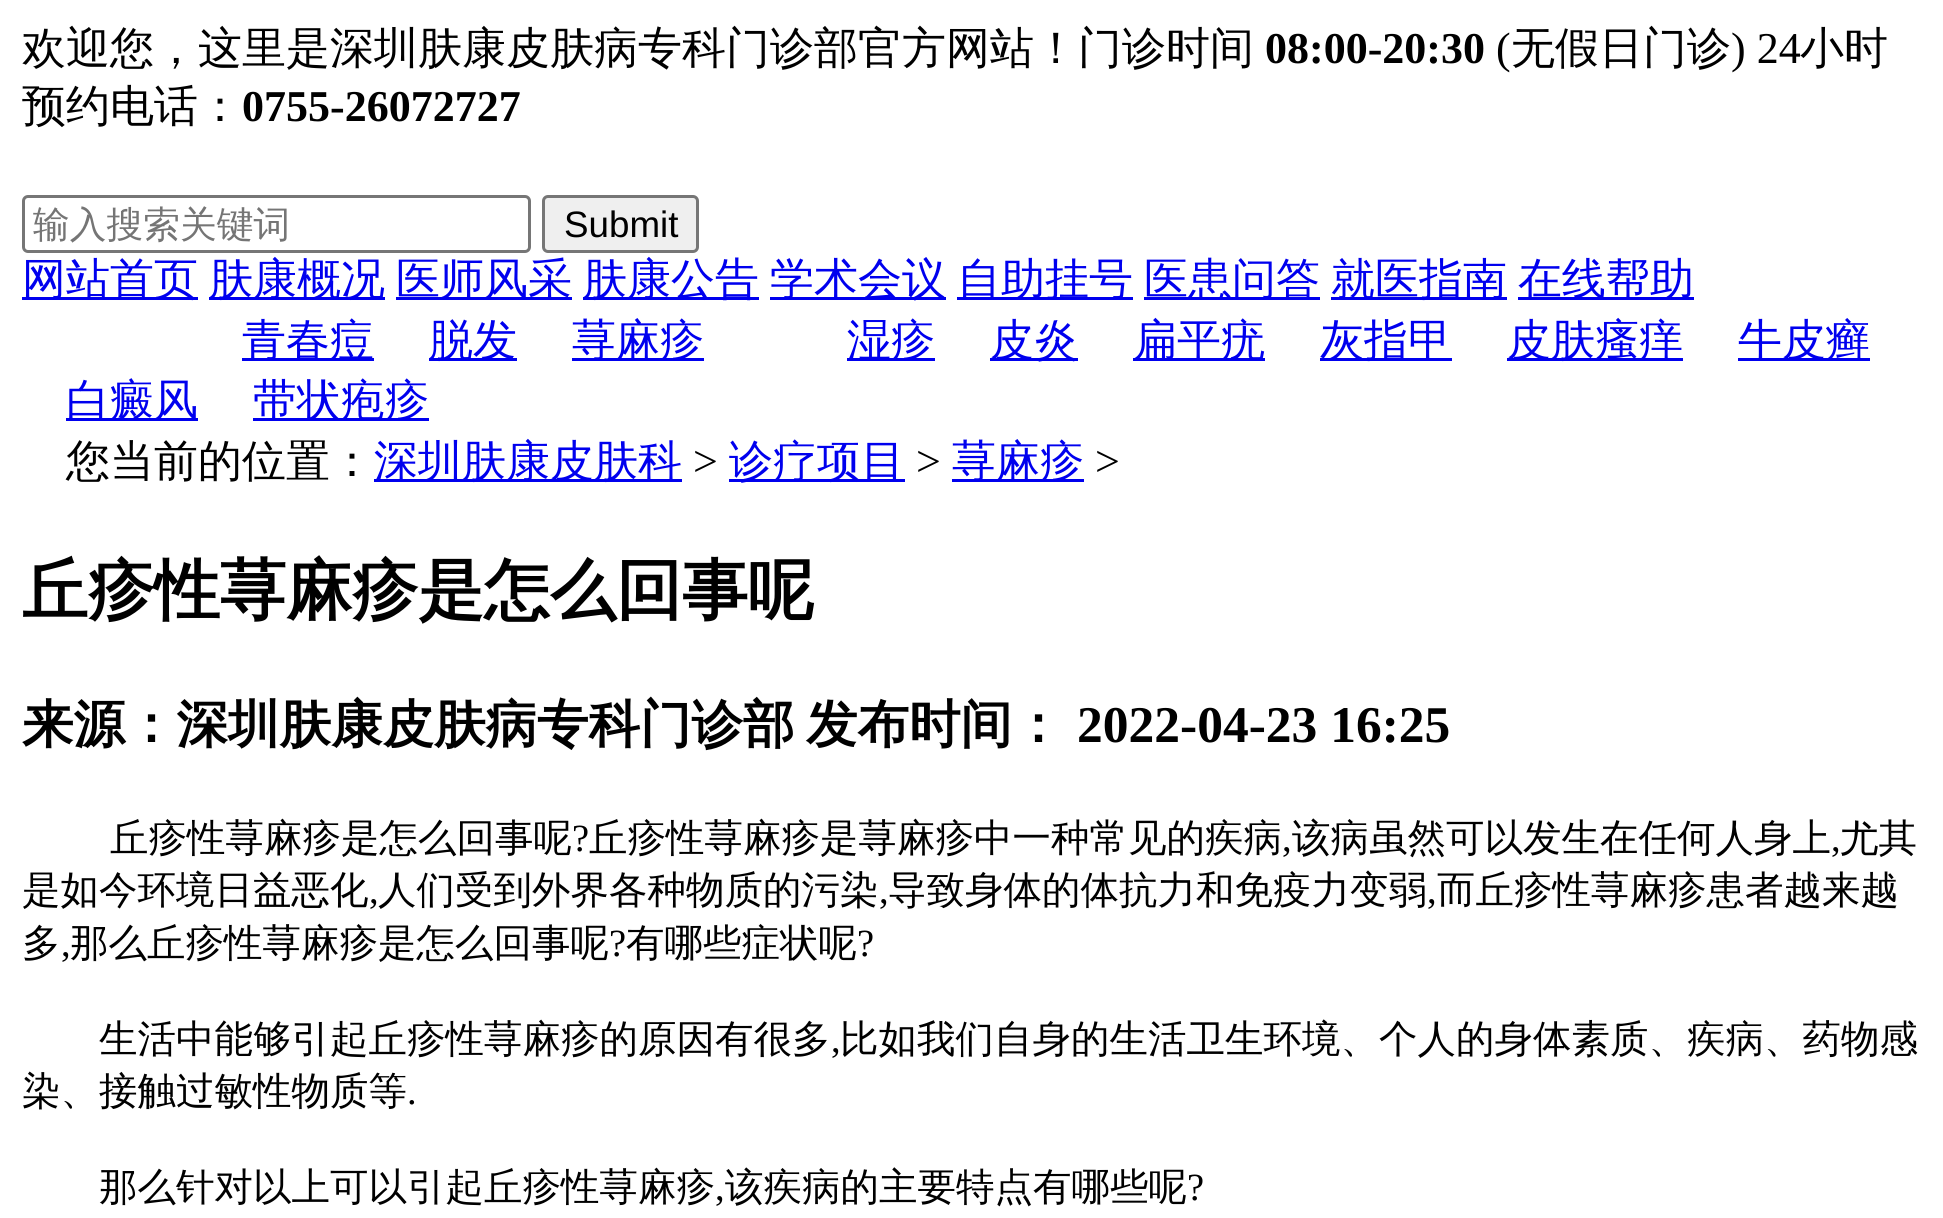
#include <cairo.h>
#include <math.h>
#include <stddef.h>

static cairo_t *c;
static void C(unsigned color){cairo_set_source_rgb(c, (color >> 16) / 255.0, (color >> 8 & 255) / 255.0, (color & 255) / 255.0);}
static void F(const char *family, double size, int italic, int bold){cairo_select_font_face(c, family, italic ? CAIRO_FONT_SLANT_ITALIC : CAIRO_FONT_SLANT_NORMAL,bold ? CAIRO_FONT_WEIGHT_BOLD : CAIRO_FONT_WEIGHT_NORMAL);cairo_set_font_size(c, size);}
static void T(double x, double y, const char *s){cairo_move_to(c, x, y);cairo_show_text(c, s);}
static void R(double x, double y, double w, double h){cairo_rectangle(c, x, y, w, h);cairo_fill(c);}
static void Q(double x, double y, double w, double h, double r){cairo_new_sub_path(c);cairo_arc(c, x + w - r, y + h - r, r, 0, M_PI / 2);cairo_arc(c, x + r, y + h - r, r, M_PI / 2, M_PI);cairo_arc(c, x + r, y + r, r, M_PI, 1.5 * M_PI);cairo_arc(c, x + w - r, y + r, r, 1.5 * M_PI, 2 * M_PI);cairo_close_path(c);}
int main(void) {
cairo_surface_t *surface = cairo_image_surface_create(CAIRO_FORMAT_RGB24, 1943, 1218);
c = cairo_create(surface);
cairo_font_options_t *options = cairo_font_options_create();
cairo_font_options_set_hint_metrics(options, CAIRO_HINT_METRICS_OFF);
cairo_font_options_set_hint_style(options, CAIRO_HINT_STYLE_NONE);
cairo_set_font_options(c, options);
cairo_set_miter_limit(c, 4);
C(0xffffff);
cairo_paint(c);
F("WenQuanYi Zen Hei Medium",44,0,0);
C(0x000000);
T(22,63,"欢迎您，这里是深圳肤康皮肤病专科门诊部官方网站！门诊时间");
F("Liberation Serif",44,0,1);
T(1265,63,"08:00-20:30");
F("Liberation Serif",44,0,0);
T(1496,63,"(");
F("WenQuanYi Zen Hei Medium",44,0,0);
T(1511,63,"无假日门诊");
F("Liberation Serif",44,0,0);
T(1731,63,") 24");
F("WenQuanYi Zen Hei Medium",44,0,0);
T(1800,63,"小时");
T(22,121,"预约电话：");
F("Liberation Serif",44,0,1);
T(242,121,"0755-26072727");
Q(23.5,196.5,506,55,4.5);
C(0x767676);
cairo_set_line_width(c,3);
cairo_stroke(c);
F("WenQuanYi Zen Hei Medium",36.75,0,0);
C(0x757575);
T(33,237,"输入搜索关键词");
C(0xefefef);
Q(543.5,196.5,154,55,4.5);
cairo_fill_preserve(c);
C(0x767676);
cairo_stroke(c);
F("Liberation Sans",36.75,0,0);
C(0x000000);
T(564,237,"Submit");
C(0x0000ee);
R(22,297,176,3);
F("WenQuanYi Zen Hei Medium",44,0,0);
T(22,294,"网站首页");
R(209,297,176,3);
T(209,294,"肤康概况");
R(396,297,176,3);
T(396,294,"医师风采");
R(583,297,176,3);
T(583,294,"肤康公告");
R(770,297,176,3);
T(770,294,"学术会议");
R(957,297,176,3);
T(957,294,"自助挂号");
R(1144,297,176,3);
T(1144,294,"医患问答");
R(1331,297,176,3);
T(1331,294,"就医指南");
R(1518,297,176,3);
T(1518,294,"在线帮助");
R(242,358,132,3);
T(242,355,"青春痘");
R(429,358,88,3);
T(429,355,"脱发");
R(572,358,132,3);
T(572,355,"荨麻疹");
R(847,358,88,3);
T(847,355,"湿疹");
R(990,358,88,3);
T(990,355,"皮炎");
R(1133,358,132,3);
T(1133,355,"扁平疣");
R(1320,358,132,3);
T(1320,355,"灰指甲");
R(1507,358,176,3);
T(1507,355,"皮肤瘙痒");
R(1738,358,132,3);
T(1738,355,"牛皮癣");
R(66,418,132,3);
T(66,415,"白癜风");
R(253,418,176,3);
T(253,415,"带状疱疹");
C(0x000000);
T(66,476,"您当前的位置：");
C(0x0000ee);
R(374,479,308,3);
T(374,476,"深圳肤康皮肤科");
F("Liberation Serif",44,0,0);
C(0x000000);
T(693,476,">");
C(0x0000ee);
R(729,479,176,3);
F("WenQuanYi Zen Hei Medium",44,0,0);
T(729,476,"诊疗项目");
F("Liberation Serif",44,0,0);
C(0x000000);
T(916,476,">");
C(0x0000ee);
R(952,479,132,3);
F("WenQuanYi Zen Hei Medium",44,0,0);
T(952,476,"荨麻疹");
F("Liberation Serif",44,0,0);
C(0x000000);
T(1095,476,">");
F("WenQuanYi Zen Hei",66,0,1);
T(22,613,"丘疹性荨麻疹是怎么回事呢");
F("WenQuanYi Zen Hei",51.5,0,1);
T(22,742,"来源：深圳肤康皮肤病专科门诊部");
T(806,742,"发布时间：");
F("Liberation Serif",51.5,0,1);
T(1077,742,"2022-04-23 16:25");
F("WenQuanYi Zen Hei Medium",38.5,0,0);
T(110,851,"丘疹性荨麻疹是怎么回事呢");
F("Liberation Serif",38.5,0,0);
T(572,851,"?");
F("WenQuanYi Zen Hei Medium",38.5,0,0);
T(589,851,"丘疹性荨麻疹是荨麻疹中一种常见的疾病");
F("Liberation Serif",38.5,0,0);
T(1282,851,",");
F("WenQuanYi Zen Hei Medium",38.5,0,0);
T(1292,851,"该病虽然可以发生在任何人身上");
F("Liberation Serif",38.5,0,0);
T(1831,851,",");
F("WenQuanYi Zen Hei Medium",38.5,0,0);
T(1840,851,"尤其");
T(22,903,"是如今环境日益恶化");
F("Liberation Serif",38.5,0,0);
T(369,903,",");
F("WenQuanYi Zen Hei Medium",38.5,0,0);
T(378,903,"人们受到外界各种物质的污染");
F("Liberation Serif",38.5,0,0);
T(879,903,",");
F("WenQuanYi Zen Hei Medium",38.5,0,0);
T(888,903,"导致身体的体抗力和免疫力变弱");
F("Liberation Serif",38.5,0,0);
T(1427,903,",");
F("WenQuanYi Zen Hei Medium",38.5,0,0);
T(1437,903,"而丘疹性荨麻疹患者越来越");
T(22,956,"多");
F("Liberation Serif",38.5,0,0);
T(61,956,",");
F("WenQuanYi Zen Hei Medium",38.5,0,0);
T(70,956,"那么丘疹性荨麻疹是怎么回事呢");
F("Liberation Serif",38.5,0,0);
T(609,956,"?");
F("WenQuanYi Zen Hei Medium",38.5,0,0);
T(626,956,"有哪些症状呢");
F("Liberation Serif",38.5,0,0);
T(857,956,"?");
F("WenQuanYi Zen Hei Medium",38.5,0,0);
T(99,1052,"生活中能够引起丘疹性荨麻疹的原因有很多");
F("Liberation Serif",38.5,0,0);
T(831,1052,",");
F("WenQuanYi Zen Hei Medium",38.5,0,0);
T(840,1052,"比如我们自身的生活卫生环境、个人的身体素质、疾病、药物感");
T(22,1104,"染、接触过敏性物质等");
F("Liberation Serif",38.5,0,0);
T(407,1104,".");
F("WenQuanYi Zen Hei Medium",38.5,0,0);
T(99,1200,"那么针对以上可以引起丘疹性荨麻疹");
F("Liberation Serif",38.5,0,0);
T(715,1200,",");
F("WenQuanYi Zen Hei Medium",38.5,0,0);
T(725,1200,"该疾病的主要特点有哪些呢");
F("Liberation Serif",38.5,0,0);
T(1187,1200,"?");
cairo_surface_write_to_png(surface, "o.png");
cairo_font_options_destroy(options);
cairo_destroy(c);
cairo_surface_destroy(surface);
return 0;
}
